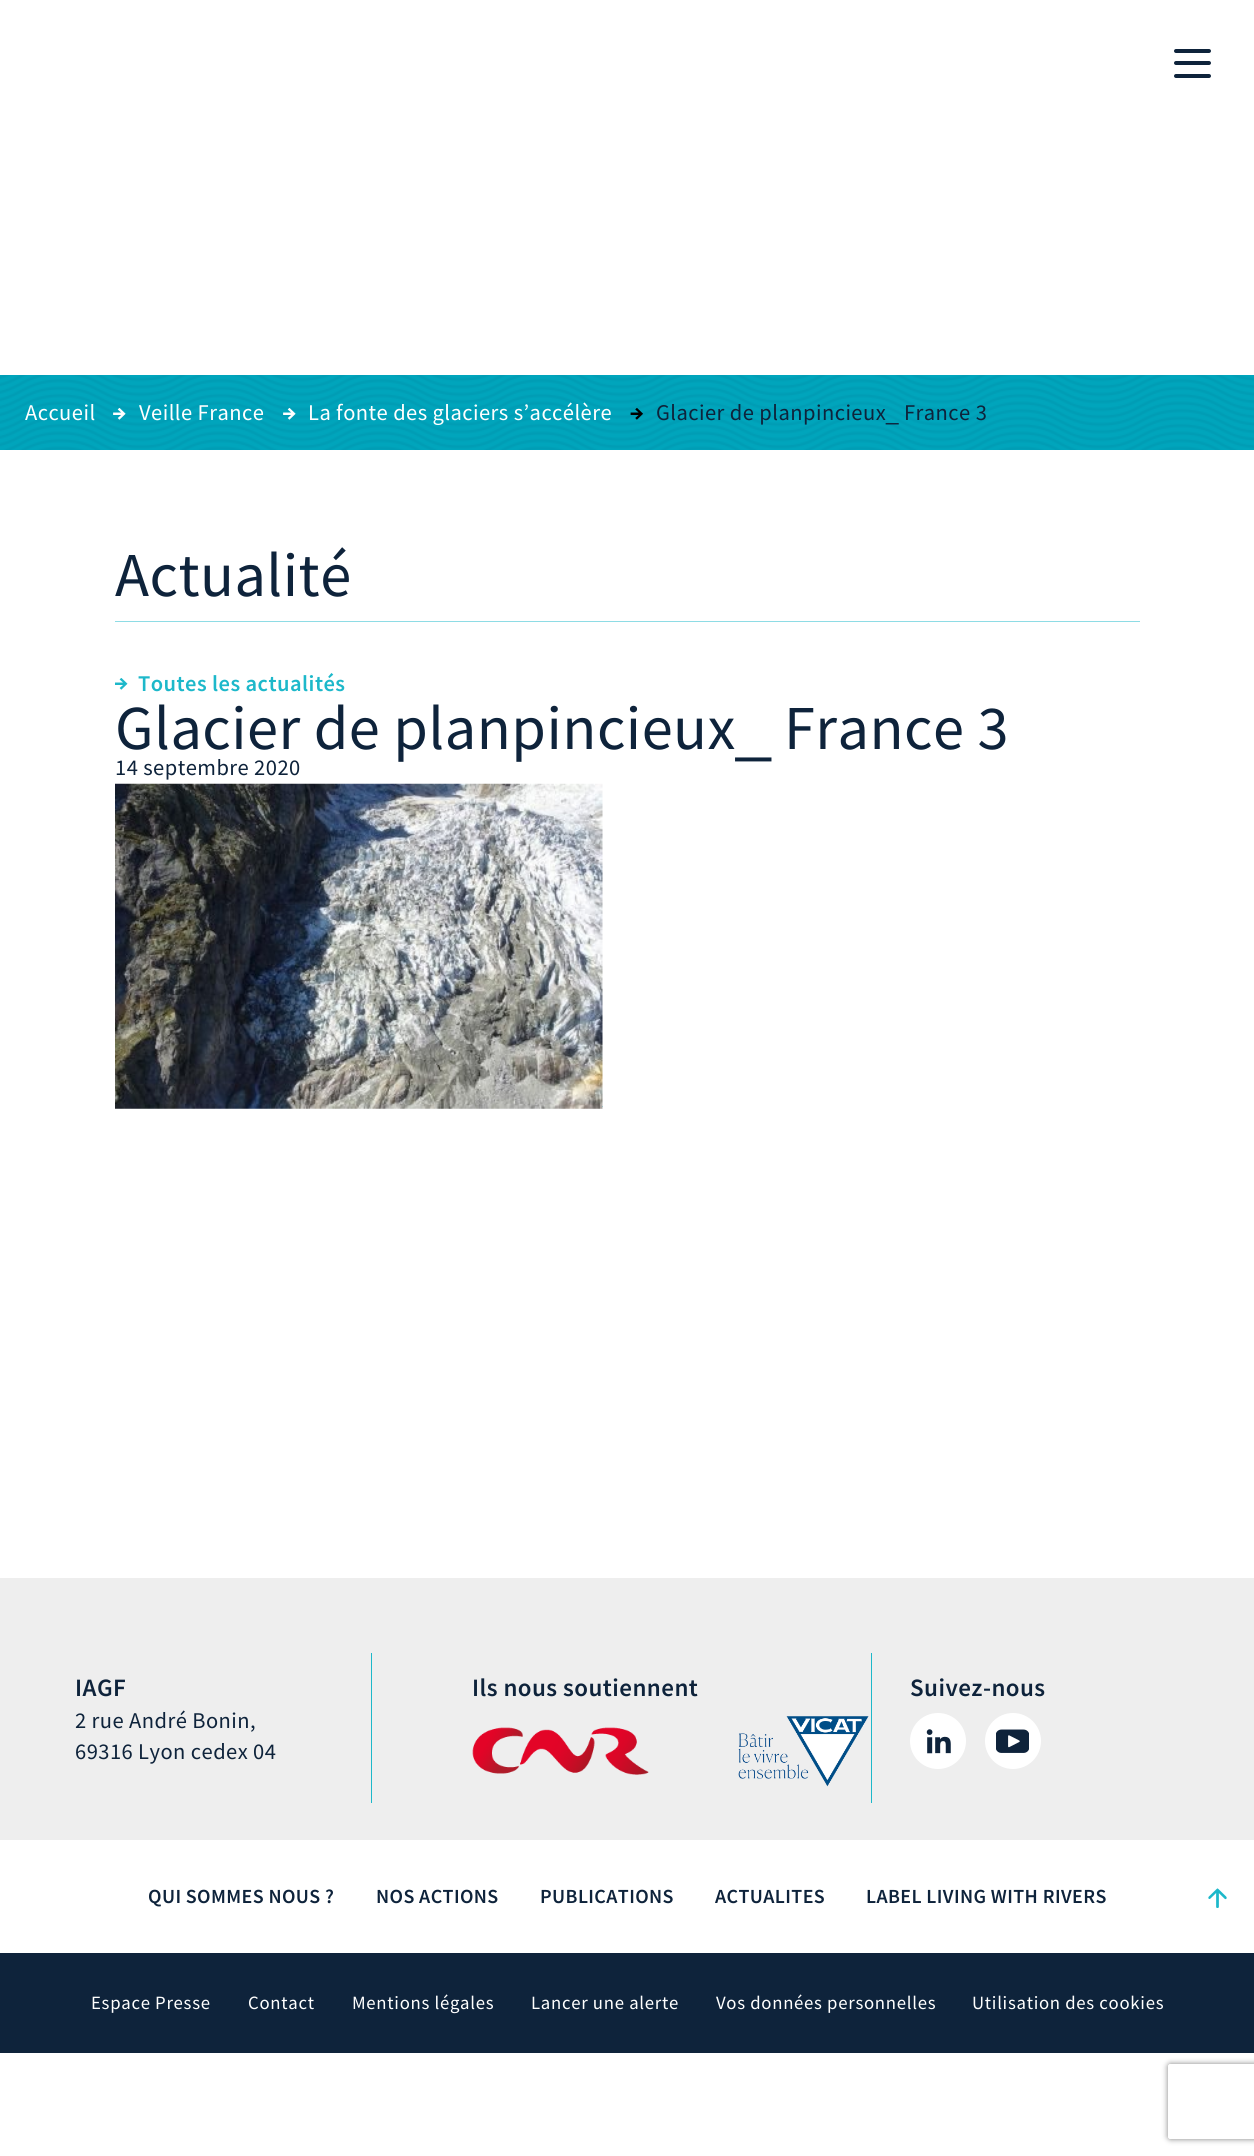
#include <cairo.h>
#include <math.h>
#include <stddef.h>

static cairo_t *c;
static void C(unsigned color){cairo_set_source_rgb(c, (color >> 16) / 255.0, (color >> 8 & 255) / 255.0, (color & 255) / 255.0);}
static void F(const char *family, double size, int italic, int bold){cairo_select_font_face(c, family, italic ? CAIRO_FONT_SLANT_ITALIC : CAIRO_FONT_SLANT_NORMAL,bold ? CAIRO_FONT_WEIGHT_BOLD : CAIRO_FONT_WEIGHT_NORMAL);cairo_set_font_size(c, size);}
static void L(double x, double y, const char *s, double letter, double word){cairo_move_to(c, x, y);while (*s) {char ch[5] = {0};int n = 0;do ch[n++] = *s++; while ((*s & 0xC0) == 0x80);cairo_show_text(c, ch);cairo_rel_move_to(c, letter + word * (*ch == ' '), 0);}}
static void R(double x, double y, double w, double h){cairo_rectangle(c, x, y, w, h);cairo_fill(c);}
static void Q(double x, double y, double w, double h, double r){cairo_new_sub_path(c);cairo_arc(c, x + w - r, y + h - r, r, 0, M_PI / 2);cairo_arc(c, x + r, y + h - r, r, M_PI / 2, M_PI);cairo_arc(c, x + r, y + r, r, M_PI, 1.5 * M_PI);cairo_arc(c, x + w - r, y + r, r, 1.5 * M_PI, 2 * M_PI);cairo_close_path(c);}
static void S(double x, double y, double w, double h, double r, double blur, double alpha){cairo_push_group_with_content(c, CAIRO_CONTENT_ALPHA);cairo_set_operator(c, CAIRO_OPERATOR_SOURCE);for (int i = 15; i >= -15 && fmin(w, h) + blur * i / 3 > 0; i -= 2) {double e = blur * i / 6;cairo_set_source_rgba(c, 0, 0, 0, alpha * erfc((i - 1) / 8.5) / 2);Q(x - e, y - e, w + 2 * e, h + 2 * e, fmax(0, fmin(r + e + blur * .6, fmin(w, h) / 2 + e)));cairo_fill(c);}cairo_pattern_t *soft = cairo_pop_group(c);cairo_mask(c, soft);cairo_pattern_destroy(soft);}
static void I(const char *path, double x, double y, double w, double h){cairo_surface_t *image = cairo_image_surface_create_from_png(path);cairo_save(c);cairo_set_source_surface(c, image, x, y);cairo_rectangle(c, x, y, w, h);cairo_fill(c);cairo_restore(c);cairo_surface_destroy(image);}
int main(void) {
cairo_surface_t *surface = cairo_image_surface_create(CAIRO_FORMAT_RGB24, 1254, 2156);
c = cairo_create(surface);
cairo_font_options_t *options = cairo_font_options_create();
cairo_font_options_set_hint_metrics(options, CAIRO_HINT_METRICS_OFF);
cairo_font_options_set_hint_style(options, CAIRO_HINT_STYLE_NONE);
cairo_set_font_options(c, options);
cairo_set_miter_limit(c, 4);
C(0xffffff);
cairo_paint(c);
C(0x0e233b);
Q(1174,49,37,4,2);
cairo_fill(c);
Q(1174,61,37,4,2);
cairo_fill(c);
Q(1174,74,37,4,2);
cairo_fill(c);
I("1.png",0,375,1254,75);
F("Source Sans Pro",22.5,0,0);
C(0xffffff);
L(25,420,"Accueil",.45,0);
I("2.png",113,408,13,12);
L(139,420,"Veille France",.45,0);
I("3.png",283,408,13,12);
L(308,420,"La fonte des glaciers s’accélère",.45,0);
I("4.png",630,408,13,12);
C(0x0e233b);
L(656,420,"Glacier de planpincieux",.45,0);
L(904,420,"France 3",.45,0);
F("Liberation Sans",22.5,0,0);
L(886,420,"_",.45,0);
F("Source Sans Pro",62.5,0,0);
L(115,596,"Actualité",.45,0);
C(0x8edce5);
R(115,621,1025,1);
I("5.png",115,678,13,12);
F("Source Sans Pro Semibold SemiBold",22.5,0,0);
C(0x1db8ca);
L(138,691,"Toutes les actualités",.45,0);
F("Source Sans Pro",62.5,0,0);
C(0x0e233b);
L(115,749,"Glacier de planpincieux",.45,0);
L(784,749,"France 3",.45,0);
F("Liberation Sans",62.5,0,0);
L(736,749,"_",.45,0);
F("Source Sans Pro",22.5,0,0);
L(115,775,"14 septembre 2020",.45,0);
C(0x8edce5);
R(602,1106,1,1);
I("6.png",115,783,488,326);
C(0xeeeeee);
R(0,1578,1254,262);
C(0x1db8ca);
R(371,1653,1,150);
F("Source Sans Pro Semibold SemiBold",25,0,0);
C(0x0e233b);
L(75,1696,"IAGF",.45,0);
F("Source Sans Pro",22.5,0,0);
L(75,1728,"2 rue André Bonin,",.45,0);
L(75,1759,"69316 Lyon cedex 04",.45,0);
C(0x1db8ca);
R(871,1653,1,150);
F("Source Sans Pro Semibold SemiBold",25,0,0);
C(0x0e233b);
L(472,1696,"Ils nous soutiennent",.45,0);
I("7.png",472,1727,177,48);
I("8.png",738,1716,131,71);
L(910,1696,"Suivez-nous",.45,0);
C(0xffffff);
cairo_new_path(c);
cairo_arc(c,938,1741,28,0,2 * M_PI);
cairo_fill(c);
I("9.png",926,1729,25,25);
cairo_arc(c,1013,1741,28,0,2 * M_PI);
cairo_fill(c);
I("10.png",996,1729,33,24);
F("Source Sans Pro Semibold SemiBold",20,0,0);
C(0x0e233b);
L(148,1903,"QUI SOMMES NOUS ?",.4,0);
L(376,1903,"NOS ACTIONS",.4,0);
L(540,1903,"PUBLICATIONS",.4,0);
L(715,1903,"ACTUALITES",.4,0);
L(866,1903,"LABEL LIVING WITH RIVERS",.4,0);
I("11.png",1208,1888,19,20);
R(0,1953,1254,100);
F("Source Sans Pro",18.75,0,0);
C(0xffffff);
L(91,2009,"Espace Presse",.7,0);
L(248,2009,"Contact",.7,0);
L(352,2009,"Mentions légales",.7,0);
L(531,2009,"Lancer une alerte",.7,0);
L(716,2009,"Vos données personnelles",.7,0);
L(972,2009,"Utilisation des cookies",.7,0);
cairo_save(c);
cairo_set_fill_rule(c,CAIRO_FILL_RULE_EVEN_ODD);
cairo_new_path(c);
cairo_move_to(c,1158,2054);
cairo_line_to(c,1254,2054);
cairo_line_to(c,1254,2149);
cairo_line_to(c,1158,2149);
cairo_close_path(c);
cairo_move_to(c,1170.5,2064);
cairo_line_to(c,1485.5,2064);
cairo_curve_to(c,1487,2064,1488,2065,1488,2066.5);
cairo_line_to(c,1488,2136.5);
cairo_curve_to(c,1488,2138,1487,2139,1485.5,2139);
cairo_line_to(c,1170.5,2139);
cairo_curve_to(c,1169,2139,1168,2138,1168,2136.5);
cairo_line_to(c,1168,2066.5);
cairo_curve_to(c,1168,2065,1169,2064,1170.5,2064);
cairo_close_path(c);
cairo_clip(c);
C(0x808080);
S(1168,2064,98,75,2.5,3,1);
cairo_restore(c);
cairo_surface_write_to_png(surface, "o.png");
cairo_font_options_destroy(options);
cairo_destroy(c);
cairo_surface_destroy(surface);
return 0;
}
